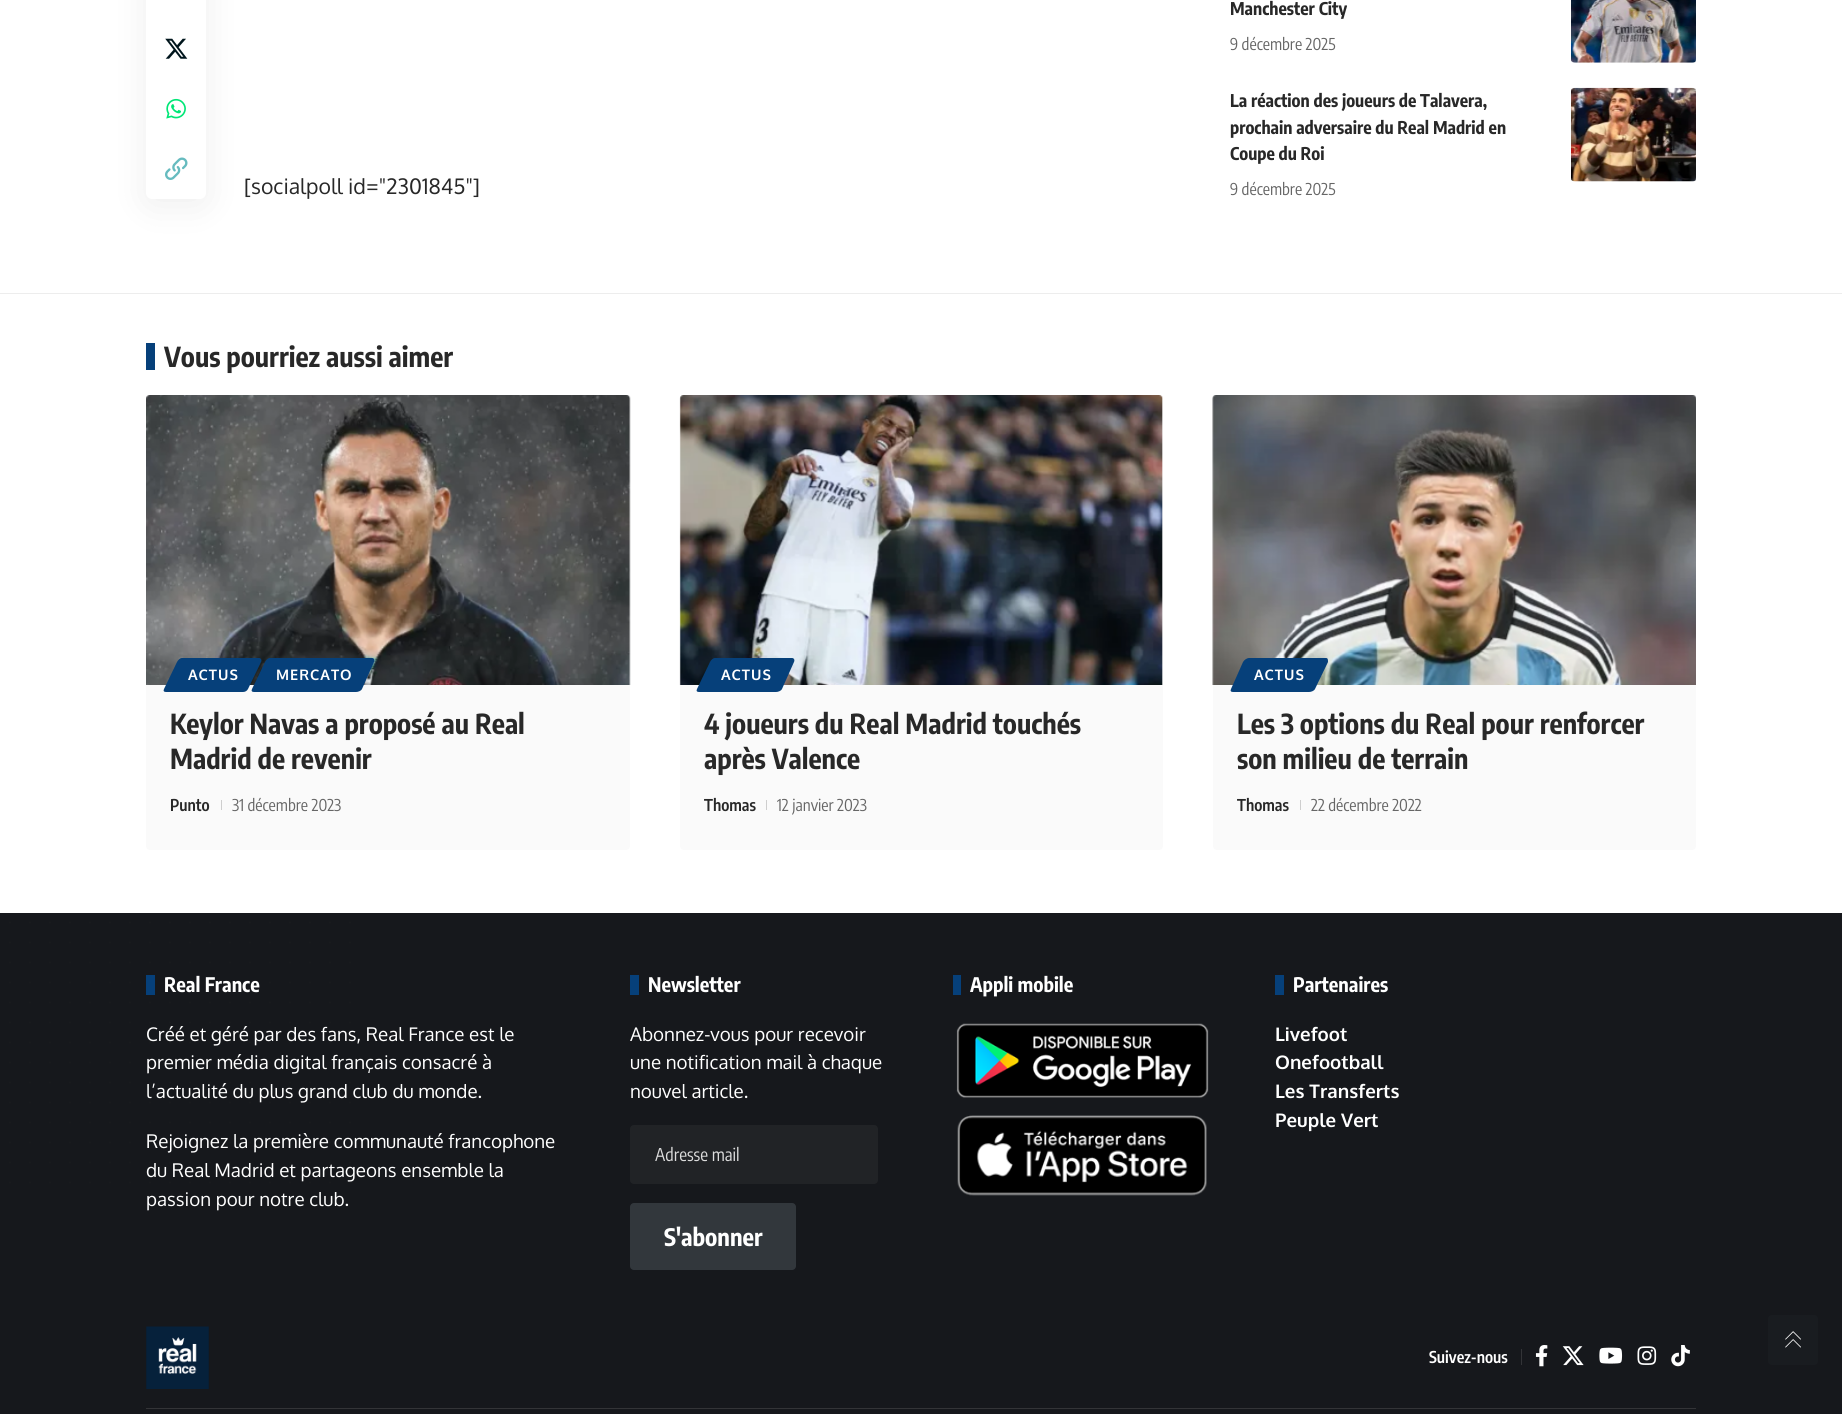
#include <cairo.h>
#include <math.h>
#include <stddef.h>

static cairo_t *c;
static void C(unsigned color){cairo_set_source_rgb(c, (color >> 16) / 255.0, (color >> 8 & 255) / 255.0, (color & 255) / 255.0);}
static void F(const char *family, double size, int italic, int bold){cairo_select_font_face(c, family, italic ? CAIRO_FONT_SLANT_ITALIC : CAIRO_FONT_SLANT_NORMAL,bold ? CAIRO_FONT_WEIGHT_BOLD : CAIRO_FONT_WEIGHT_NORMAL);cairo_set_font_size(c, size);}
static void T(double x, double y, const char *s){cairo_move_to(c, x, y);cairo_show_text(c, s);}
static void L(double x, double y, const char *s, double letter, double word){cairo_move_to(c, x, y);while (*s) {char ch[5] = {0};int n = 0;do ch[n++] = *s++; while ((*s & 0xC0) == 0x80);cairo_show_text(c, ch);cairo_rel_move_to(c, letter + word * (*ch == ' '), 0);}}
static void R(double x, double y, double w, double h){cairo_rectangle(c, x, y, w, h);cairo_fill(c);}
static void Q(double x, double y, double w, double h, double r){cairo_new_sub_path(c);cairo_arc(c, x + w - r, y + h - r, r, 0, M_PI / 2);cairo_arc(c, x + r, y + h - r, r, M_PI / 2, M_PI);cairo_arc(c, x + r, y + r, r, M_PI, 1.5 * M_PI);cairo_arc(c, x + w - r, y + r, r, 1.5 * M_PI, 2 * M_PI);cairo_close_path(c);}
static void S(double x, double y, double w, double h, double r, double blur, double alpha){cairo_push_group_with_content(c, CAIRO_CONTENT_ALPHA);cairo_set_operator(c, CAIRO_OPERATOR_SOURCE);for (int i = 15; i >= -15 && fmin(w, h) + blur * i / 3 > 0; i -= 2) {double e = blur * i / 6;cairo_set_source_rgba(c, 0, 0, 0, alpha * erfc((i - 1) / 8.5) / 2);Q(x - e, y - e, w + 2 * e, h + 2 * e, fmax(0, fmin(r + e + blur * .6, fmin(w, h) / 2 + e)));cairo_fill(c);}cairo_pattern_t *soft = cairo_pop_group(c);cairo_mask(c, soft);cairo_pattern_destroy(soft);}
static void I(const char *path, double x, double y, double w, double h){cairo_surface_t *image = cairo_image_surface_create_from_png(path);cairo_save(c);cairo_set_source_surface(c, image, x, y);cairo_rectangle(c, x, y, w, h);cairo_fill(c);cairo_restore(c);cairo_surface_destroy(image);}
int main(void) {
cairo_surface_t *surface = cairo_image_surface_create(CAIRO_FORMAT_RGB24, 1842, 1414);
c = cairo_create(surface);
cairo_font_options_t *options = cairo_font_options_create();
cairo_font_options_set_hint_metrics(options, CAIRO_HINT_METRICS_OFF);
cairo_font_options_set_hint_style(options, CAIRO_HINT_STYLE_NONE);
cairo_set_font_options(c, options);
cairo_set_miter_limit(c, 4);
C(0xffffff);
cairo_paint(c);
C(0x000000);
S(146,-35,60,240,6,19,.07);
C(0xffffff);
Q(146,-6,60,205,6);
cairo_fill(c);
I("1.png",165,38,23,21);
I("2.png",166,98,20,21);
I("3.png",165,157,23,23);
F("Oxygen",21.25,0,0);
C(0x282828);
T(244,194,"[socialpoll id=\"2301845\"]");
F("Encode Sans Condensed",17.5,0,1);
T(1230,15,"Manchester City");
F("Encode Sans Condensed",16.25,0,0);
C(0x666666);
T(1230,50,"9 décembre 2025");
I("4.png",1571,0,125,63);
F("Encode Sans Condensed",17.5,0,1);
C(0x282828);
T(1230,107,"La réaction des joueurs de Talavera,");
T(1230,134,"prochain adversaire du Real Madrid en");
T(1230,160,"Coupe du Roi");
F("Encode Sans Condensed",16.25,0,0);
C(0x666666);
T(1230,195,"9 décembre 2025");
I("5.png",1571,87,125,95);
C(0xededed);
R(0,293,1842,1);
C(0x06407a);
R(146,343,9,27);
F("Encode Sans Condensed",27.5,0,1);
C(0x282828);
T(164,367,"Vous pourriez aussi aimer");
C(0xfafafa);
Q(146,395,484,455,4);
cairo_fill(c);
I("6.png",146,395,485,290);
C(0x06407a);
cairo_new_path(c);
cairo_move_to(c,182,658);
cairo_line_to(c,259,658);
cairo_curve_to(c,261,658,262,660,261,662);
cairo_line_to(c,248,689);
cairo_curve_to(c,247,691,245,692,243,692);
cairo_line_to(c,166,692);
cairo_curve_to(c,164,692,163,691,164,689);
cairo_line_to(c,177,662);
cairo_curve_to(c,178,660,180,658,182,658);
cairo_close_path(c);
cairo_fill(c);
F("Oxygen",14.5,0,1);
C(0xffffff);
L(188,680,"ACTUS",1,0);
C(0x06407a);
cairo_new_path(c);
cairo_move_to(c,270,658);
cairo_line_to(c,372,658);
cairo_curve_to(c,374,658,375,660,374,662);
cairo_line_to(c,362,689);
cairo_curve_to(c,361,691,358,692,356,692);
cairo_line_to(c,254,692);
cairo_curve_to(c,252,692,251,691,252,689);
cairo_line_to(c,265,662);
cairo_curve_to(c,266,660,268,658,270,658);
cairo_close_path(c);
cairo_fill(c);
C(0xffffff);
L(276,680,"MERCATO",1,0);
F("Encode Sans Condensed",27.5,0,1);
C(0x282828);
T(170,734,"Keylor Navas a proposé au Real");
T(170,769,"Madrid de revenir");
F("Encode Sans Condensed SemiBold",16.25,0,0);
T(170,811,"Punto");
C(0xcecece);
R(221,800,1,10);
F("Encode Sans Condensed",16.25,0,0);
C(0x666666);
T(232,811,"31 décembre 2023");
C(0xfafafa);
Q(680,395,483,455,4);
cairo_fill(c);
I("7.png",679,395,484,290);
C(0x06407a);
cairo_new_path(c);
cairo_move_to(c,715,658);
cairo_line_to(c,792,658);
cairo_curve_to(c,794,658,795,660,794,662);
cairo_line_to(c,782,689);
cairo_curve_to(c,781,691,778,692,776,692);
cairo_line_to(c,699,692);
cairo_curve_to(c,697,692,696,691,697,689);
cairo_line_to(c,710,662);
cairo_curve_to(c,711,660,713,658,715,658);
cairo_close_path(c);
cairo_fill(c);
F("Oxygen",14.5,0,1);
C(0xffffff);
L(721,680,"ACTUS",1,0);
F("Encode Sans Condensed",27.5,0,1);
C(0x282828);
T(704,734,"4 joueurs du Real Madrid touchés");
T(704,769,"après Valence");
F("Encode Sans Condensed SemiBold",16.25,0,0);
T(704,811,"Thomas");
C(0xcecece);
R(766,800,1,10);
F("Encode Sans Condensed",16.25,0,0);
C(0x666666);
T(777,811,"12 janvier 2023");
C(0xfafafa);
Q(1213,395,483,455,4);
cairo_fill(c);
I("8.png",1212,395,484,290);
C(0x06407a);
cairo_new_path(c);
cairo_move_to(c,1249,658);
cairo_line_to(c,1326,658);
cairo_curve_to(c,1328,658,1328,660,1328,662);
cairo_line_to(c,1315,689);
cairo_curve_to(c,1314,691,1311,692,1309,692);
cairo_line_to(c,1233,692);
cairo_curve_to(c,1231,692,1230,691,1231,689);
cairo_line_to(c,1243,662);
cairo_curve_to(c,1244,660,1247,658,1249,658);
cairo_close_path(c);
cairo_fill(c);
F("Oxygen",14.5,0,1);
C(0xffffff);
L(1254,680,"ACTUS",1,0);
F("Encode Sans Condensed",27.5,0,1);
C(0x282828);
T(1237,734,"Les 3 options du Real pour renforcer");
T(1237,769,"son milieu de terrain");
F("Encode Sans Condensed SemiBold",16.25,0,0);
T(1237,811,"Thomas");
C(0xcecece);
R(1300,800,1,10);
F("Encode Sans Condensed",16.25,0,0);
C(0x666666);
T(1311,811,"22 décembre 2022");
C(0x16181c);
R(0,913,1842,501);
cairo_new_path(c);
cairo_move_to(c,10,922.5);
cairo_line_to(c,350.2,922.5);
C(0x1a1b1e);
cairo_set_line_width(c,1.9);
cairo_set_line_cap(c,CAIRO_LINE_CAP_ROUND);
cairo_set_dash(c,(double[]){0,20},2,0);
cairo_stroke(c);
cairo_new_path(c);
cairo_move_to(c,10,942.5);
cairo_line_to(c,350.2,942.5);
cairo_stroke(c);
cairo_new_path(c);
cairo_move_to(c,10,962.5);
cairo_line_to(c,350.2,962.5);
cairo_stroke(c);
cairo_new_path(c);
cairo_move_to(c,10,982.5);
cairo_line_to(c,350.2,982.5);
cairo_stroke(c);
cairo_new_path(c);
cairo_move_to(c,10,1002.5);
cairo_line_to(c,350.2,1002.5);
cairo_stroke(c);
cairo_new_path(c);
cairo_move_to(c,10,1022.5);
cairo_line_to(c,350.2,1022.5);
cairo_stroke(c);
cairo_new_path(c);
cairo_move_to(c,10,1042.5);
cairo_line_to(c,350.2,1042.5);
cairo_stroke(c);
cairo_new_path(c);
cairo_move_to(c,10,1062.5);
cairo_line_to(c,350.2,1062.5);
cairo_stroke(c);
cairo_new_path(c);
cairo_move_to(c,10,1082.5);
cairo_line_to(c,350.2,1082.5);
cairo_stroke(c);
cairo_new_path(c);
cairo_move_to(c,10,1102.5);
cairo_line_to(c,350.2,1102.5);
cairo_stroke(c);
cairo_new_path(c);
cairo_move_to(c,10,1122.5);
cairo_line_to(c,350.2,1122.5);
cairo_stroke(c);
cairo_new_path(c);
cairo_move_to(c,10,1142.5);
cairo_line_to(c,350.2,1142.5);
cairo_stroke(c);
cairo_new_path(c);
cairo_move_to(c,10,1162.5);
cairo_line_to(c,350.2,1162.5);
cairo_stroke(c);
cairo_new_path(c);
cairo_move_to(c,10,1182.5);
cairo_line_to(c,350.2,1182.5);
cairo_stroke(c);
C(0x06407a);
R(146,975,9,20);
F("Encode Sans Condensed",20,0,1);
C(0xffffff);
T(164,992,"Real France");
F("Oxygen",18.75,0,0);
T(146,1041,"Créé et géré par des fans, Real France est le");
T(146,1069,"premier média digital français consacré à");
T(146,1098,"l’actualité du plus grand club du monde.");
T(146,1148,"Rejoignez la première communauté francophone");
T(146,1177,"du Real Madrid et partageons ensemble la");
T(146,1206,"passion pour notre club.");
C(0x06407a);
R(630,975,9,20);
F("Encode Sans Condensed",20,0,1);
C(0xffffff);
T(648,992,"Newsletter");
F("Oxygen",18.75,0,0);
T(630,1041,"Abonnez-vous pour recevoir");
T(630,1069,"une notification mail à chaque");
T(630,1098,"nouvel article.");
C(0x212326);
Q(630,1125,248,59,4);
cairo_fill(c);
F("Encode Sans Condensed",17.5,0,0);
C(0xdddddd);
T(655,1161,"Adresse mail");
C(0x32373c);
Q(630,1203,166,67,4);
cairo_fill(c);
F("Encode Sans Condensed",24,0,1);
C(0xffffff);
T(664,1246,"S'abonner");
C(0x06407a);
R(953,975,8,20);
F("Encode Sans Condensed",20,0,1);
C(0xffffff);
T(970,992,"Appli mobile");
I("9.png",956,1023,253,75);
I("10.png",957,1115,250,81);
C(0x06407a);
R(1275,975,9,20);
C(0xffffff);
T(1293,992,"Partenaires");
F("Oxygen",18.75,0,1);
T(1275,1041,"Livefoot");
T(1275,1069,"Onefootball");
T(1275,1098,"Les Transferts");
T(1275,1127,"Peuple Vert");
I("11.png",146,1326,63,63);
C(0x333437);
R(1521,1349,1,16);
F("Encode Sans Condensed SemiBold",16.25,0,0);
C(0xffffff);
T(1429,1363,"Suivez-nous");
I("12.png",1535,1345,13,22);
I("13.png",1562,1346,22,20);
I("14.png",1599,1347,24,17);
I("15.png",1637,1346,20,19);
I("16.png",1671,1345,19,22);
C(0x333437);
R(146,1408,1550,1);
C(0x191c20);
Q(1768,1315,50,50,4);
cairo_fill(c);
I("17.png",1785,1331,16,17);
cairo_surface_write_to_png(surface, "o.png");
cairo_font_options_destroy(options);
cairo_destroy(c);
cairo_surface_destroy(surface);
return 0;
}
